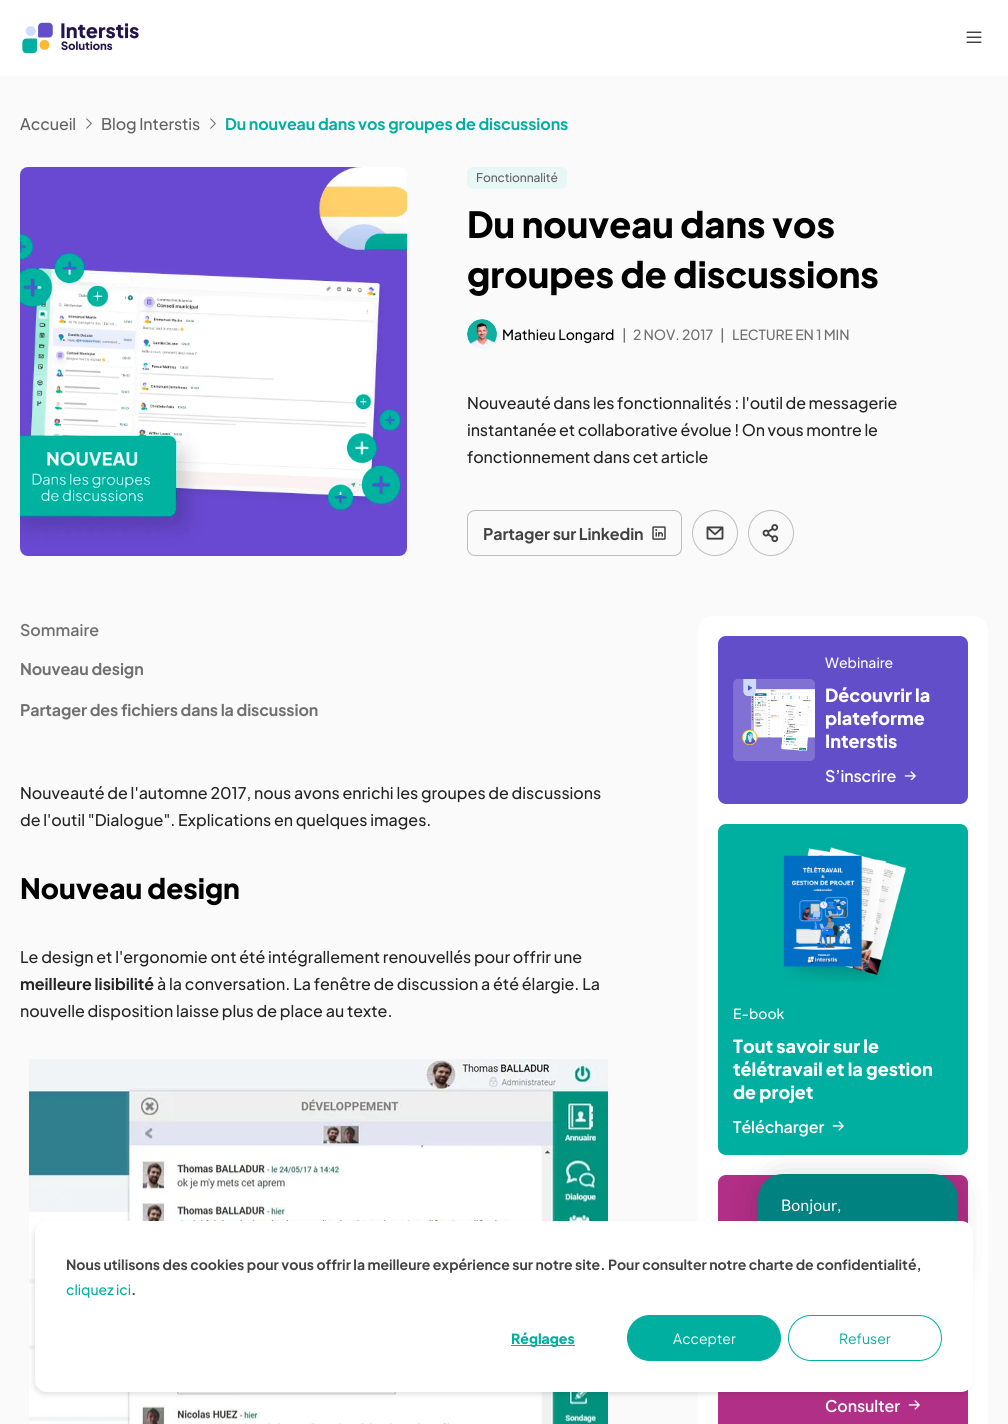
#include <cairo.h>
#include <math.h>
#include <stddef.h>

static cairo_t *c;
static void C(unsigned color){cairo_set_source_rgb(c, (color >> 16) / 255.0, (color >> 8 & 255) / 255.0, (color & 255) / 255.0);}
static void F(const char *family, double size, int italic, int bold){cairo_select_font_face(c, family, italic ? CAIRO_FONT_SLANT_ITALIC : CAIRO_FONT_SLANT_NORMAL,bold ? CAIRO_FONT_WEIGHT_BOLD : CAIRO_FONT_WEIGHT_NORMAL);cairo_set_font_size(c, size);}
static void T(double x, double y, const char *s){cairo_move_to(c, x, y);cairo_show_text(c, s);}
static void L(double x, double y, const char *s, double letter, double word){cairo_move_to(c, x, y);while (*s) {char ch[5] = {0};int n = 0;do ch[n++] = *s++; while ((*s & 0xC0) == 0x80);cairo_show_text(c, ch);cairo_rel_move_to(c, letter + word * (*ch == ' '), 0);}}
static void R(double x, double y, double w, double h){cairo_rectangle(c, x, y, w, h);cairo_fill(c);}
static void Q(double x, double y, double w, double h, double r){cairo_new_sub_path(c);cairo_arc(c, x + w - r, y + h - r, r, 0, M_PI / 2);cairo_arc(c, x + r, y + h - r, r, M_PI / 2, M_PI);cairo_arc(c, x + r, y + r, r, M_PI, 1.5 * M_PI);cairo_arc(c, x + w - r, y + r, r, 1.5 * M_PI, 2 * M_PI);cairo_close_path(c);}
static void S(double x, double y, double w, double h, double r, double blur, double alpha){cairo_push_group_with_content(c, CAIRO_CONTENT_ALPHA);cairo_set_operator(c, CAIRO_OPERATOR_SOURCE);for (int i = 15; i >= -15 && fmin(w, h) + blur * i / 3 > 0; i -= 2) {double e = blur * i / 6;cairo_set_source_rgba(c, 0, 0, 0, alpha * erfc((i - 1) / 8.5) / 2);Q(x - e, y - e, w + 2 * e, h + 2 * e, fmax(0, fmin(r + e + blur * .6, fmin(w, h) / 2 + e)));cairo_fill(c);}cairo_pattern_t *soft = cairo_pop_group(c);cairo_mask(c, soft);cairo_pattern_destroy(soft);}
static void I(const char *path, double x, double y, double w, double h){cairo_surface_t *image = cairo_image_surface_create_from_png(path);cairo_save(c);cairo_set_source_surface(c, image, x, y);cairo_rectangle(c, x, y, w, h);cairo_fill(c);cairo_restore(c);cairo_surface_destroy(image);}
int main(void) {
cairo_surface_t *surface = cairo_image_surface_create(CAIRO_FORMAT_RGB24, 1008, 1424);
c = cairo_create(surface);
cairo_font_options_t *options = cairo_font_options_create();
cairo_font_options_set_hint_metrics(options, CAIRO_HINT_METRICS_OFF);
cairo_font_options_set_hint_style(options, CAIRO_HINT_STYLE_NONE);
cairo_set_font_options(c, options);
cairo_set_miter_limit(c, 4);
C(0xfafafa);
cairo_paint(c);
C(0xffffff);
R(0,0,1008,76);
I("1.png",22,22,117,32);
I("2.png",966,31,16,12);
F("Plus Jakarta Sans Medium",16,0,0);
C(0x616161);
L(20,130,"Accueil",-.1,0);
I("3.png",86,118,6,11);
L(101,130,"Blog Interstis",-.1,0);
I("3.png",210,118,6,11);
F("Plus Jakarta Sans",16,0,1);
C(0x00af9f);
L(225,130,"Du nouveau dans vos groupes de discussions",-.1,0);
I("4.png",20,167,387,389);
C(0xe6f7f5);
Q(467.5,167.5,99,21,5.5);
cairo_fill_preserve(c);
cairo_set_line_width(c,1);
cairo_stroke(c);
F("Plus Jakarta Sans Medium",12,0,0);
C(0x616161);
L(476,182,"Fonctionnalité",-.1,0);
F("Plus Jakarta Sans ExtraBold",36,0,0);
C(0x000000);
T(467,238,"Du nouveau dans vos");
T(467,288,"groupes de discussions");
I("5.png",467,319,30,30);
F("Plus Jakarta Sans Medium",14,0,0);
T(502,340,"Mathieu Longard");
C(0x707070);
L(622,340,"|",-.1,0);
L(633,340,"2 NOV. 2017",-.1,0);
L(720,340,"|",-.1,0);
L(732,340,"LECTURE EN 1 MIN",-.1,0);
F("Plus Jakarta Sans Medium",16,0,0);
C(0x242424);
L(467,409,"Nouveauté dans les fonctionnalités : l'outil de messagerie",-.1,0);
L(467,436,"instantanée et collaborative évolue ! On vous montre le",-.1,0);
L(467,463,"fonctionnement dans cet article",-.1,0);
Q(467.5,510.5,214,45,7.5);
C(0xbdbdbd);
cairo_stroke(c);
F("Plus Jakarta Sans",16,0,1);
C(0x424242);
L(483,540,"Partager sur Linkedin",-.1,0);
I("6.png",652,526,14,14);
cairo_arc(c,715,533,22.5,0,2 * M_PI);
C(0xbdbdbd);
cairo_stroke(c);
I("7.png",706,526,18,14);
cairo_arc(c,771,533,22.5,0,2 * M_PI);
cairo_stroke(c);
I("8.png",762,524,17,19);
F("Plus Jakarta Sans SemiBold",16,0,0);
C(0x707070);
T(20,636,"Sommaire");
F("Plus Jakarta Sans",16,0,1);
L(20,675,"Nouveau design",-.1,0);
L(20,716,"Partager des fichiers dans la discussion",-.1,0);
F("Plus Jakarta Sans Medium",16,0,0);
C(0x242424);
T(20,799,"Nouveauté de l'automne 2017, nous avons enrichi les groupes de discussions");
T(20,826,"de l'outil \"Dialogue\". Explications en quelques images.");
F("Plus Jakarta Sans ExtraBold",28,0,0);
C(0x000000);
T(20,899,"Nouveau design");
F("Plus Jakarta Sans Medium",16,0,0);
C(0x242424);
T(20,963,"Le design et l'ergonomie ont été intégrallement renouvellés pour offrir une");
F("Plus Jakarta Sans",16,0,1);
T(20,990,"meilleure lisibilité");
F("Plus Jakarta Sans Medium",16,0,0);
T(157,990,"à la conversation. La fenêtre de discussion a été élargie. La");
T(20,1017,"nouvelle disposition laisse plus de place au texte.");
I("9.png",29,1059,579,365);
C(0xffffff);
Q(698,616,290,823,15);
cairo_fill(c);
C(0x634eca);
Q(718,636,250,168,8);
cairo_fill(c);
I("10.png",733,679,82,82);
F("Plus Jakarta Sans Medium",14,0,0);
C(0xffffff);
T(825,668,"Webinaire");
F("Plus Jakarta Sans ExtraBold",18,0,0);
T(825,702,"Découvrir la");
T(825,725,"plateforme");
T(825,748,"Interstis");
F("Plus Jakarta Sans SemiBold",16,0,0);
L(825,782,"S’inscrire",-.1,0);
I("11.png",904,771,12,9);
C(0x00af9f);
Q(718,824,250,331,8);
cairo_fill(c);
I("12.png",783,847,124,135);
F("Plus Jakarta Sans Medium",14,0,0);
C(0xffffff);
T(733,1019,"E-book");
F("Plus Jakarta Sans ExtraBold",18,0,0);
T(733,1053,"Tout savoir sur le");
T(733,1076,"télétravail et la gestion");
T(733,1099,"de projet");
F("Plus Jakarta Sans SemiBold",16,0,0);
L(733,1133,"Télécharger",-.1,0);
I("13.png",832,1121,12,10);
C(0xb12f86);
Q(718,1175,250,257,8);
cairo_fill(c);
C(0xffffff);
L(825,1412,"Consulter",-.1,0);
I("14.png",908,1400,12,10);
C(0x000000);
S(758,1176,200,110,25,16,.16);
C(0x008380);
Q(759.5,1175.5,197,107,23.5);
cairo_fill_preserve(c);
cairo_set_line_width(c,3);
cairo_stroke(c);
F("Lato",16,0,0);
C(0xffffff);
T(781,1211,"Bonjour,");
C(0x000000);
S(33,1224,938,171,12,2.5,.1);
C(0xffffff);
Q(35,1221,938,171,12);
cairo_fill(c);
F("Plus Jakarta Sans",14,0,1);
C(0x424242);
T(66,1270,"Nous utilisons des cookies pour vous offrir la meilleure expérience sur notre site. Pour consulter notre charte de confidentialité,");
F("Plus Jakarta Sans Medium",14,0,0);
C(0x00af9f);
T(66,1295,"cliquez ici");
F("Plus Jakarta Sans",14,0,1);
C(0x424242);
T(131,1295,".");
C(0x00af9f);
R(511,1345,64,1);
F("Plus Jakarta Sans ExtraBold",14,0,0);
T(511,1344,"Réglages");
Q(627.5,1315.5,153,45,22.5);
cairo_fill_preserve(c);
cairo_set_line_width(c,1);
cairo_stroke(c);
F("Plus Jakarta Sans",14,0,0);
C(0xffffff);
T(673,1344,"Accepter");
Q(788.5,1315.5,153,45,22.5);
C(0x00af9f);
cairo_stroke(c);
T(839,1344,"Refuser");
cairo_surface_write_to_png(surface, "o.png");
cairo_font_options_destroy(options);
cairo_destroy(c);
cairo_surface_destroy(surface);
return 0;
}
